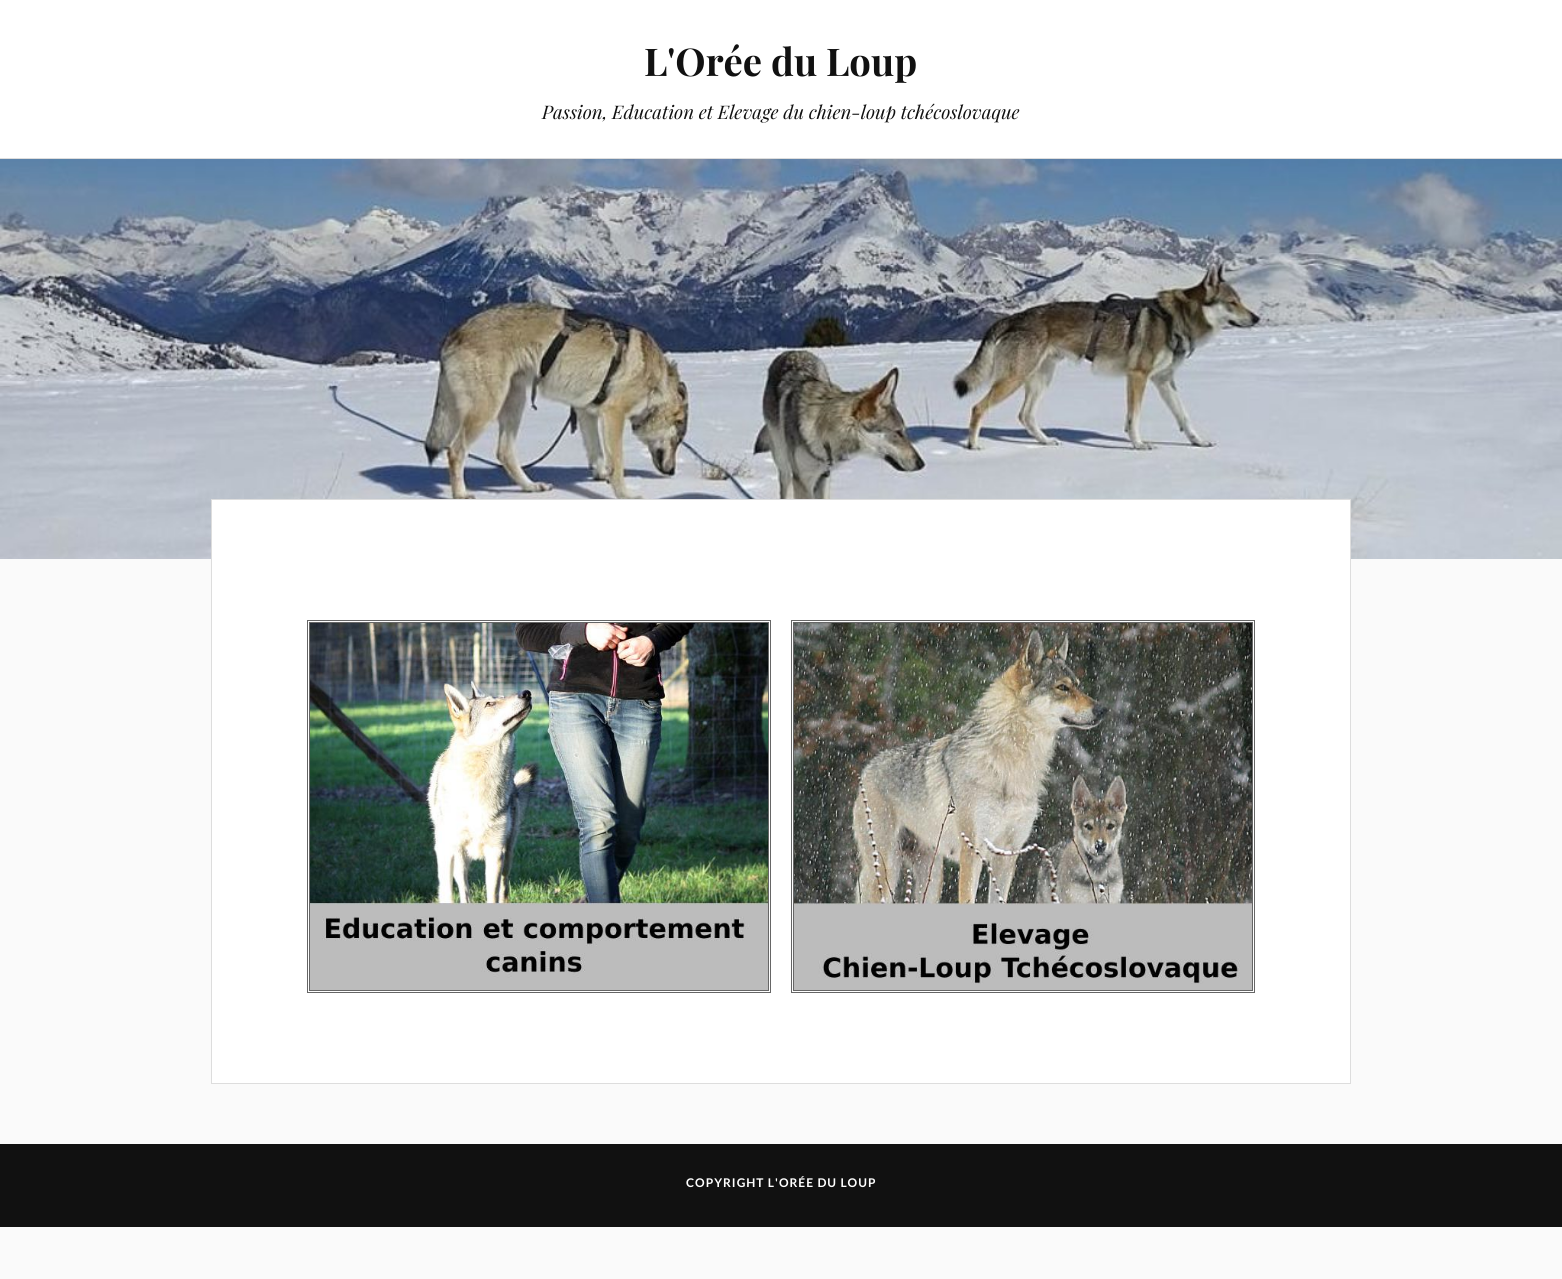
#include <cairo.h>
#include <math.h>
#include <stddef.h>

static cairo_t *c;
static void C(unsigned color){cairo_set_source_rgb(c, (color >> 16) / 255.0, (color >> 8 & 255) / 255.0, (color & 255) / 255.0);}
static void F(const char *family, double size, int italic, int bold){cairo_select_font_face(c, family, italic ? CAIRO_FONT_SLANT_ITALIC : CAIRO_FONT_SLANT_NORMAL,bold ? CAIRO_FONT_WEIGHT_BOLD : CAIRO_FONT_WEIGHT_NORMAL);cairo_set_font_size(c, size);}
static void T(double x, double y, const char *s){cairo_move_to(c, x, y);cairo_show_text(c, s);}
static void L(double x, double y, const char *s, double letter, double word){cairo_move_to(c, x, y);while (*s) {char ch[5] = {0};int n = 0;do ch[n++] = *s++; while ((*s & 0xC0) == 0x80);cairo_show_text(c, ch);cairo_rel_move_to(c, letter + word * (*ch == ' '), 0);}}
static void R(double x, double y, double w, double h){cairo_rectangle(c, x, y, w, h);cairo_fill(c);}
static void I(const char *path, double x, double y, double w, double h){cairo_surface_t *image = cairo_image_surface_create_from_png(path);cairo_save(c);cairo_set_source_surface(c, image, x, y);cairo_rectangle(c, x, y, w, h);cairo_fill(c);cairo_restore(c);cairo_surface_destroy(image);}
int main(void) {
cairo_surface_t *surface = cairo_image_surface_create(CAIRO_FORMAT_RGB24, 1562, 1279);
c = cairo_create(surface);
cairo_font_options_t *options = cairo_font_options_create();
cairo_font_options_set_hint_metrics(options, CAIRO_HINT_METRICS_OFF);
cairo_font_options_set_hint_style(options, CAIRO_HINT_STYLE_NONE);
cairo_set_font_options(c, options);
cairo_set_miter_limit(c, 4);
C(0xfafafa);
cairo_paint(c);
C(0xffffff);
R(0,0,1562,158);
F("Playfair Display",38.25,0,1);
C(0x111111);
T(644,76,"L'Orée du Loup");
F("Playfair Display",18.7,1,0);
T(542,119,"Passion, Education et Elevage du chien-loup tchécoslovaque");
C(0xdddddd);
R(0,158,1562,1);
I("1.png",0,159,1562,400);
C(0xffffff);
cairo_rectangle(c,211.5,499.5,1139,584);
cairo_fill_preserve(c);
C(0xdddddd);
cairo_set_line_width(c,1);
cairo_stroke(c);
cairo_rectangle(c,307.5,620.5,463,372);
C(0x666666);
cairo_stroke(c);
cairo_rectangle(c,309.5,622.5,459,368);
cairo_stroke(c);
I("2.png",310,623,458,367);
cairo_rectangle(c,791.5,620.5,463,372);
cairo_stroke(c);
cairo_rectangle(c,793.5,622.5,459,368);
cairo_stroke(c);
I("3.png",794,623,458,367);
C(0x111111);
R(0,1144,1562,83);
F("Lato",12,0,1);
C(0xffffff);
L(686,1187,"COPYRIGHT L'ORÉE DU LOUP",1,0);
cairo_surface_write_to_png(surface, "o.png");
cairo_font_options_destroy(options);
cairo_destroy(c);
cairo_surface_destroy(surface);
return 0;
}
